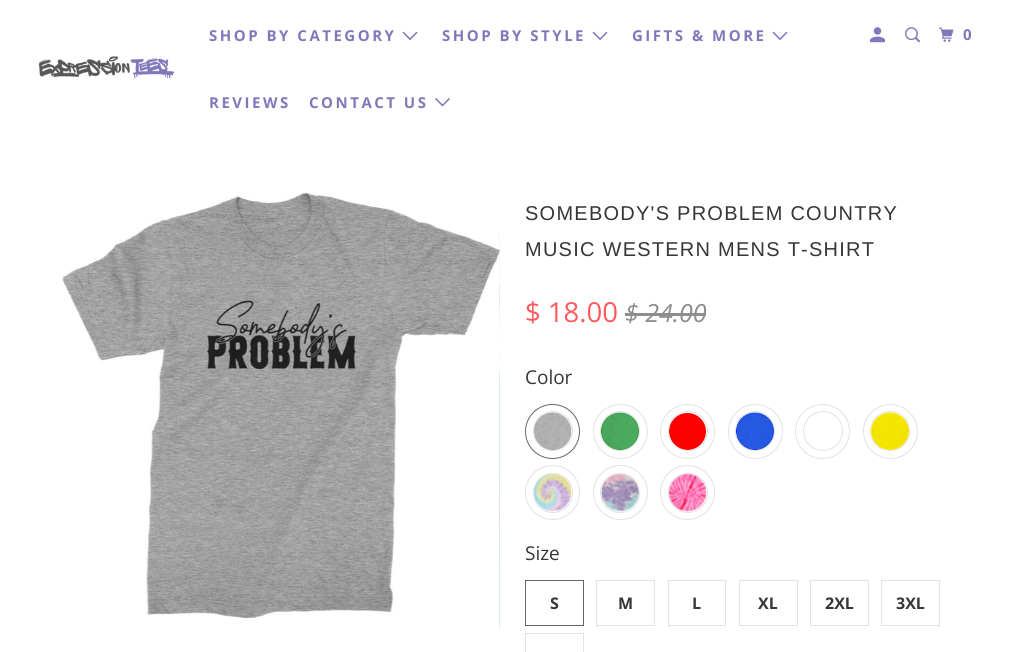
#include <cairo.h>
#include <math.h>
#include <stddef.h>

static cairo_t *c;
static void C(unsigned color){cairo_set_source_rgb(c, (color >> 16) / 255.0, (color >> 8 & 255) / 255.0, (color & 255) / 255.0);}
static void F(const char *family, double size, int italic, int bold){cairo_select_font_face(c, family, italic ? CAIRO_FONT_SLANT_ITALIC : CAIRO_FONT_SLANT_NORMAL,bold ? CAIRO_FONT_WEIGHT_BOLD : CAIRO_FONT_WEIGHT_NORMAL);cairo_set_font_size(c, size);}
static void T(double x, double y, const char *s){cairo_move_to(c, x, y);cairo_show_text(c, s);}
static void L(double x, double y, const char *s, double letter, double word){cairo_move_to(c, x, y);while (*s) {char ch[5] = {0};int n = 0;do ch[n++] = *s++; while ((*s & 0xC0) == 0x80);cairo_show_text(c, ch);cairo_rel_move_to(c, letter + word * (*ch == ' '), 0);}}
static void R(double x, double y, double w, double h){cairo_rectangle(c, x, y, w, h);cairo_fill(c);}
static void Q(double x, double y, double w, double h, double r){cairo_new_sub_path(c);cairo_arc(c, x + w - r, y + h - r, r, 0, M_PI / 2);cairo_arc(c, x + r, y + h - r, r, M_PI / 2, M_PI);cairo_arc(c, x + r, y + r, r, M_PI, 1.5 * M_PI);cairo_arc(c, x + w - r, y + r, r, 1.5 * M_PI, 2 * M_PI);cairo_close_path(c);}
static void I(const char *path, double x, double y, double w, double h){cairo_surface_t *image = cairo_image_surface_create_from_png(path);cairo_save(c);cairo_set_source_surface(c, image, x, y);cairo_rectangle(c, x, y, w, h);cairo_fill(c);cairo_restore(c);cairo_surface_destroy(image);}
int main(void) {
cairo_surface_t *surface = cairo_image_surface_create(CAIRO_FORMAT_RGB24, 1024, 652);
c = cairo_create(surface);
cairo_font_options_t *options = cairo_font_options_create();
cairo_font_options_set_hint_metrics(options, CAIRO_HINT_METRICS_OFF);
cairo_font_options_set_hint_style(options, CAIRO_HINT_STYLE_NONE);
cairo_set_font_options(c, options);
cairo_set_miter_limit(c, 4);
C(0xffffff);
cairo_paint(c);
I("1.png",38,56,137,23);
F("Open Sans",15,0,1);
C(0x7f79ba);
L(209,41,"SHOP BY CATEGORY",2.5,0);
I("2.png",402,31,16,10);
L(442,41,"SHOP BY STYLE",2.5,0);
I("2.png",592,31,16,10);
L(632,41,"GIFTS & MORE",2.5,0);
I("2.png",772,31,16,10);
L(209,108,"REVIEWS",2.5,0);
L(309,108,"CONTACT US",2.5,0);
I("3.png",435,98,15,9);
I("4.png",870,27,15,16);
I("5.png",905,27,15,16);
I("6.png",938,27,16,15);
L(963,40,"0",2.5,0);
I("7.png",62,191,438,428);
I("8.png",499,230,1,399);
F("Liberation Sans",20,0,0);
C(0x363636);
L(525,220,"SOMEBODY'S PROBLEM COUNTRY",1.25,0);
L(525,256,"MUSIC WESTERN MENS T-SHIRT",1.25,0);
F("Open Sans",27.5,0,0);
C(0xff5a5f);
T(525,322,"$ 18.00");
F("Open Sans",25,1,0);
C(0x8e8e8e);
T(625,322,"$ 24.00");
R(625,313,81,3);
F("Open Sans",19,0,0);
C(0x363636);
T(525,384,"Color");
cairo_new_path(c);
cairo_arc(c,552.5,431.5,27,0,2 * M_PI);
C(0x666666);
cairo_set_line_width(c,1);
cairo_stroke(c);
C(0x808080);
cairo_arc(c,552.5,431.5,18.5,0,2 * M_PI);
cairo_fill(c);
I("9.png",533,412,39,39);
cairo_arc(c,553,431,19.5,0,2 * M_PI);
C(0xe2e2e2);
cairo_stroke(c);
cairo_arc(c,620.5,431.5,27,0,2 * M_PI);
cairo_stroke(c);
C(0x008000);
Q(601,413,38,37,18.5);
cairo_fill(c);
I("10.png",600,412,39,39);
cairo_arc(c,620,431,19.5,0,2 * M_PI);
C(0xe2e2e2);
cairo_stroke(c);
cairo_arc(c,687.5,431.5,27,0,2 * M_PI);
cairo_stroke(c);
C(0xff0000);
cairo_arc(c,687.5,431.5,18.5,0,2 * M_PI);
cairo_fill(c);
cairo_arc(c,688,431,19.5,0,2 * M_PI);
C(0xe2e2e2);
cairo_stroke(c);
cairo_arc(c,755.5,431.5,27,0,2 * M_PI);
cairo_stroke(c);
C(0x0000ff);
Q(736,413,38,37,18.5);
cairo_fill(c);
I("11.png",735,412,39,39);
cairo_arc(c,755,431,19.5,0,2 * M_PI);
C(0xe2e2e2);
cairo_stroke(c);
cairo_arc(c,822.5,431.5,27,0,2 * M_PI);
cairo_stroke(c);
cairo_arc(c,823,431,19.5,0,2 * M_PI);
cairo_stroke(c);
cairo_arc(c,890.5,431.5,27,0,2 * M_PI);
cairo_stroke(c);
C(0xffff00);
Q(871,413,38,37,18.5);
cairo_fill(c);
I("12.png",870,412,39,39);
cairo_arc(c,890,431,19.5,0,2 * M_PI);
C(0xe2e2e2);
cairo_stroke(c);
cairo_arc(c,552.5,492.5,27,0,2 * M_PI);
cairo_stroke(c);
I("13.png",533,473,39,39);
cairo_arc(c,553,493,19.5,0,2 * M_PI);
cairo_stroke(c);
cairo_arc(c,620.5,492.5,27,0,2 * M_PI);
cairo_stroke(c);
I("14.png",600,473,39,39);
cairo_arc(c,620,493,19.5,0,2 * M_PI);
cairo_stroke(c);
cairo_arc(c,687.5,492.5,27,0,2 * M_PI);
cairo_stroke(c);
I("15.png",668,473,39,39);
cairo_arc(c,688,493,19.5,0,2 * M_PI);
cairo_stroke(c);
C(0x363636);
T(525,560,"Size");
cairo_rectangle(c,525.5,580.5,58,45);
C(0x666666);
cairo_stroke(c);
F("Open Sans",16,0,1);
C(0x363636);
T(550,609,"S");
cairo_rectangle(c,596.5,580.5,58,45);
C(0xe2e2e2);
cairo_stroke(c);
C(0x363636);
T(618,609,"M");
cairo_rectangle(c,668.5,580.5,57,45);
C(0xe2e2e2);
cairo_stroke(c);
C(0x363636);
T(692,609,"L");
cairo_rectangle(c,739.5,580.5,58,45);
C(0xe2e2e2);
cairo_stroke(c);
C(0x363636);
T(758,609,"XL");
cairo_rectangle(c,810.5,580.5,58,45);
C(0xe2e2e2);
cairo_stroke(c);
C(0x363636);
T(825,609,"2XL");
cairo_rectangle(c,881.5,580.5,58,45);
C(0xe2e2e2);
cairo_stroke(c);
C(0x363636);
T(896,609,"3XL");
cairo_rectangle(c,525.5,633.5,58,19);
C(0xe2e2e2);
cairo_stroke(c);
cairo_surface_write_to_png(surface, "o.png");
cairo_font_options_destroy(options);
cairo_destroy(c);
cairo_surface_destroy(surface);
return 0;
}
